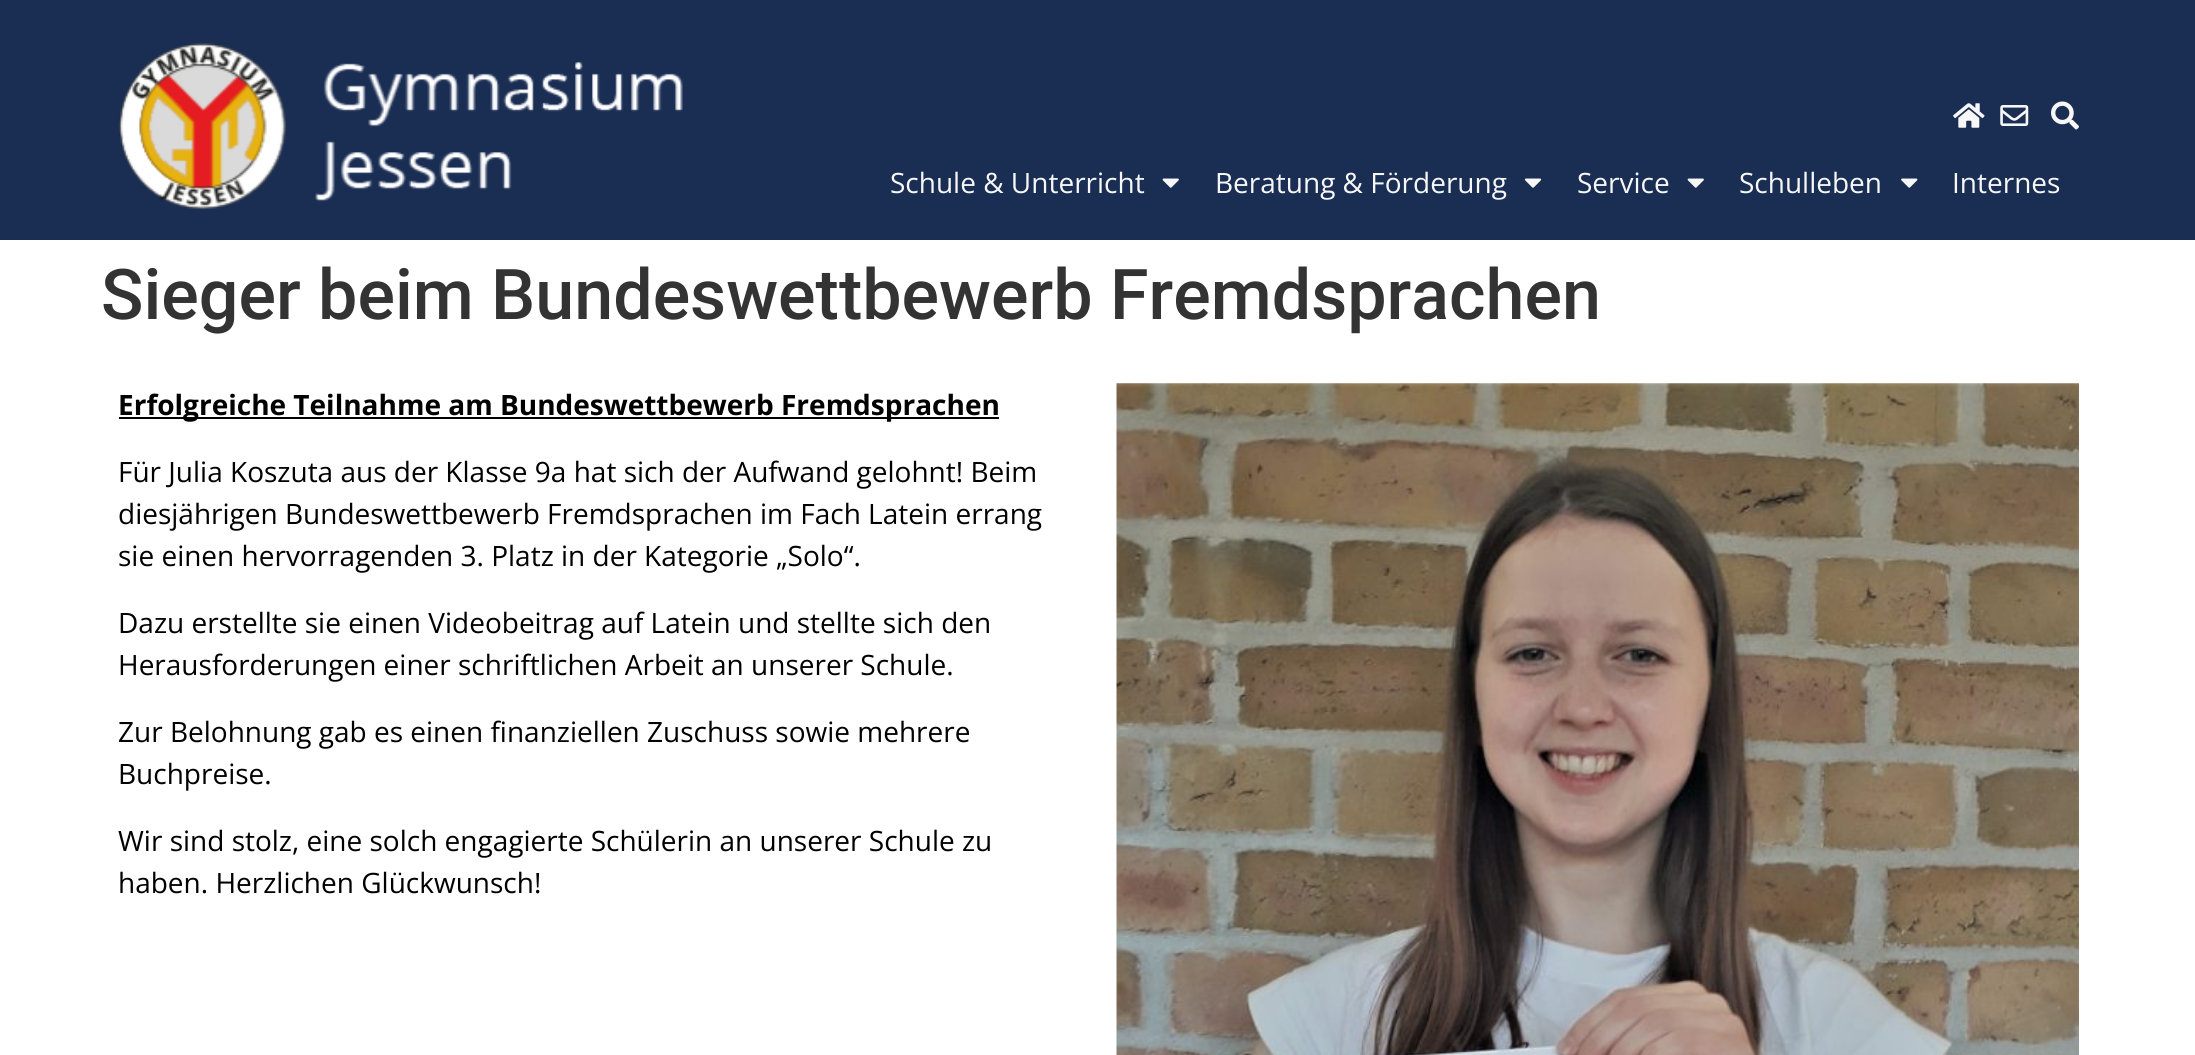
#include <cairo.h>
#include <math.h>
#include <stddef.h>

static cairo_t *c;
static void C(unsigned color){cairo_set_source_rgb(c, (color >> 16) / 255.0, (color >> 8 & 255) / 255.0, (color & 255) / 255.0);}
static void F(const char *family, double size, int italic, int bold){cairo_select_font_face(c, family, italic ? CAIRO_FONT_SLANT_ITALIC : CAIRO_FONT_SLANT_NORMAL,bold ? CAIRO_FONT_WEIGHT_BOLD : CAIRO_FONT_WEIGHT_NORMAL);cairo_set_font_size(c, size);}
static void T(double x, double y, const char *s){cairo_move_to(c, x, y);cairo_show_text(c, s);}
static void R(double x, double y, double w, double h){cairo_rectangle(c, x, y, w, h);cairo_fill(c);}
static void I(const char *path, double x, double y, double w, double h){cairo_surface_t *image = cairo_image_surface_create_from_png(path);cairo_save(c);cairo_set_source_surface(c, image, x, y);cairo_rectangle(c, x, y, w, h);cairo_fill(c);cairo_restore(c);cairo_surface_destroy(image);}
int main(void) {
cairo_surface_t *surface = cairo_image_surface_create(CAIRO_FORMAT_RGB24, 2195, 1055);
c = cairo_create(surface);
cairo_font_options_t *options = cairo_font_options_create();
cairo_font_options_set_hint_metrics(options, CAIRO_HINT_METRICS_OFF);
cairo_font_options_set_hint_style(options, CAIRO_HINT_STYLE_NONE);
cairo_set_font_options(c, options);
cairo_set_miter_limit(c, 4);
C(0xffffff);
cairo_paint(c);
C(0x1a2d53);
R(0,0,2195,240);
I("1.png",118,43,565,167);
I("2.png",1953,103,32,25);
I("3.png",2000,105,29,21);
I("4.png",2051,101,28,29);
F("Open Sans",28,0,0);
C(0xf7f7f7);
T(890,193,"Schule & Unterricht");
I("5.png",1162,178,17,10);
T(1215,193,"Beratung & Förderung");
I("6.png",1524,178,18,10);
T(1577,193,"Service");
I("5.png",1687,178,17,10);
T(1739,193,"Schulleben");
I("7.png",1901,178,17,10);
T(1952,193,"Internes");
F("Roboto Medium",70,0,0);
C(0x333333);
T(101,319,"Sieger beim Bundeswettbewerb Fremdsprachen");
C(0x000000);
R(119,417,880,2);
F("Open Sans",28,0,1);
T(118,415,"Erfolgreiche Teilnahme am Bundeswettbewerb Fremdsprachen");
F("Open Sans",28,0,0);
T(118,482,"Für Julia Koszuta aus der Klasse 9a hat sich der Aufwand gelohnt! Beim");
T(118,524,"diesjährigen Bundeswettbewerb Fremdsprachen im Fach Latein errang");
T(118,566,"sie einen hervorragenden 3. Platz in der Kategorie „Solo“.");
T(118,633,"Dazu erstellte sie einen Videobeitrag auf Latein und stellte sich den");
T(118,675,"Herausforderungen einer schriftlichen Arbeit an unserer Schule.");
T(118,742,"Zur Belohnung gab es einen finanziellen Zuschuss sowie mehrere");
T(118,784,"Buchpreise.");
T(118,851,"Wir sind stolz, eine solch engagierte Schülerin an unserer Schule zu");
T(118,893,"haben. Herzlichen Glückwunsch!");
I("8.png",1116,383,963,672);
cairo_surface_write_to_png(surface, "o.png");
cairo_font_options_destroy(options);
cairo_destroy(c);
cairo_surface_destroy(surface);
return 0;
}
